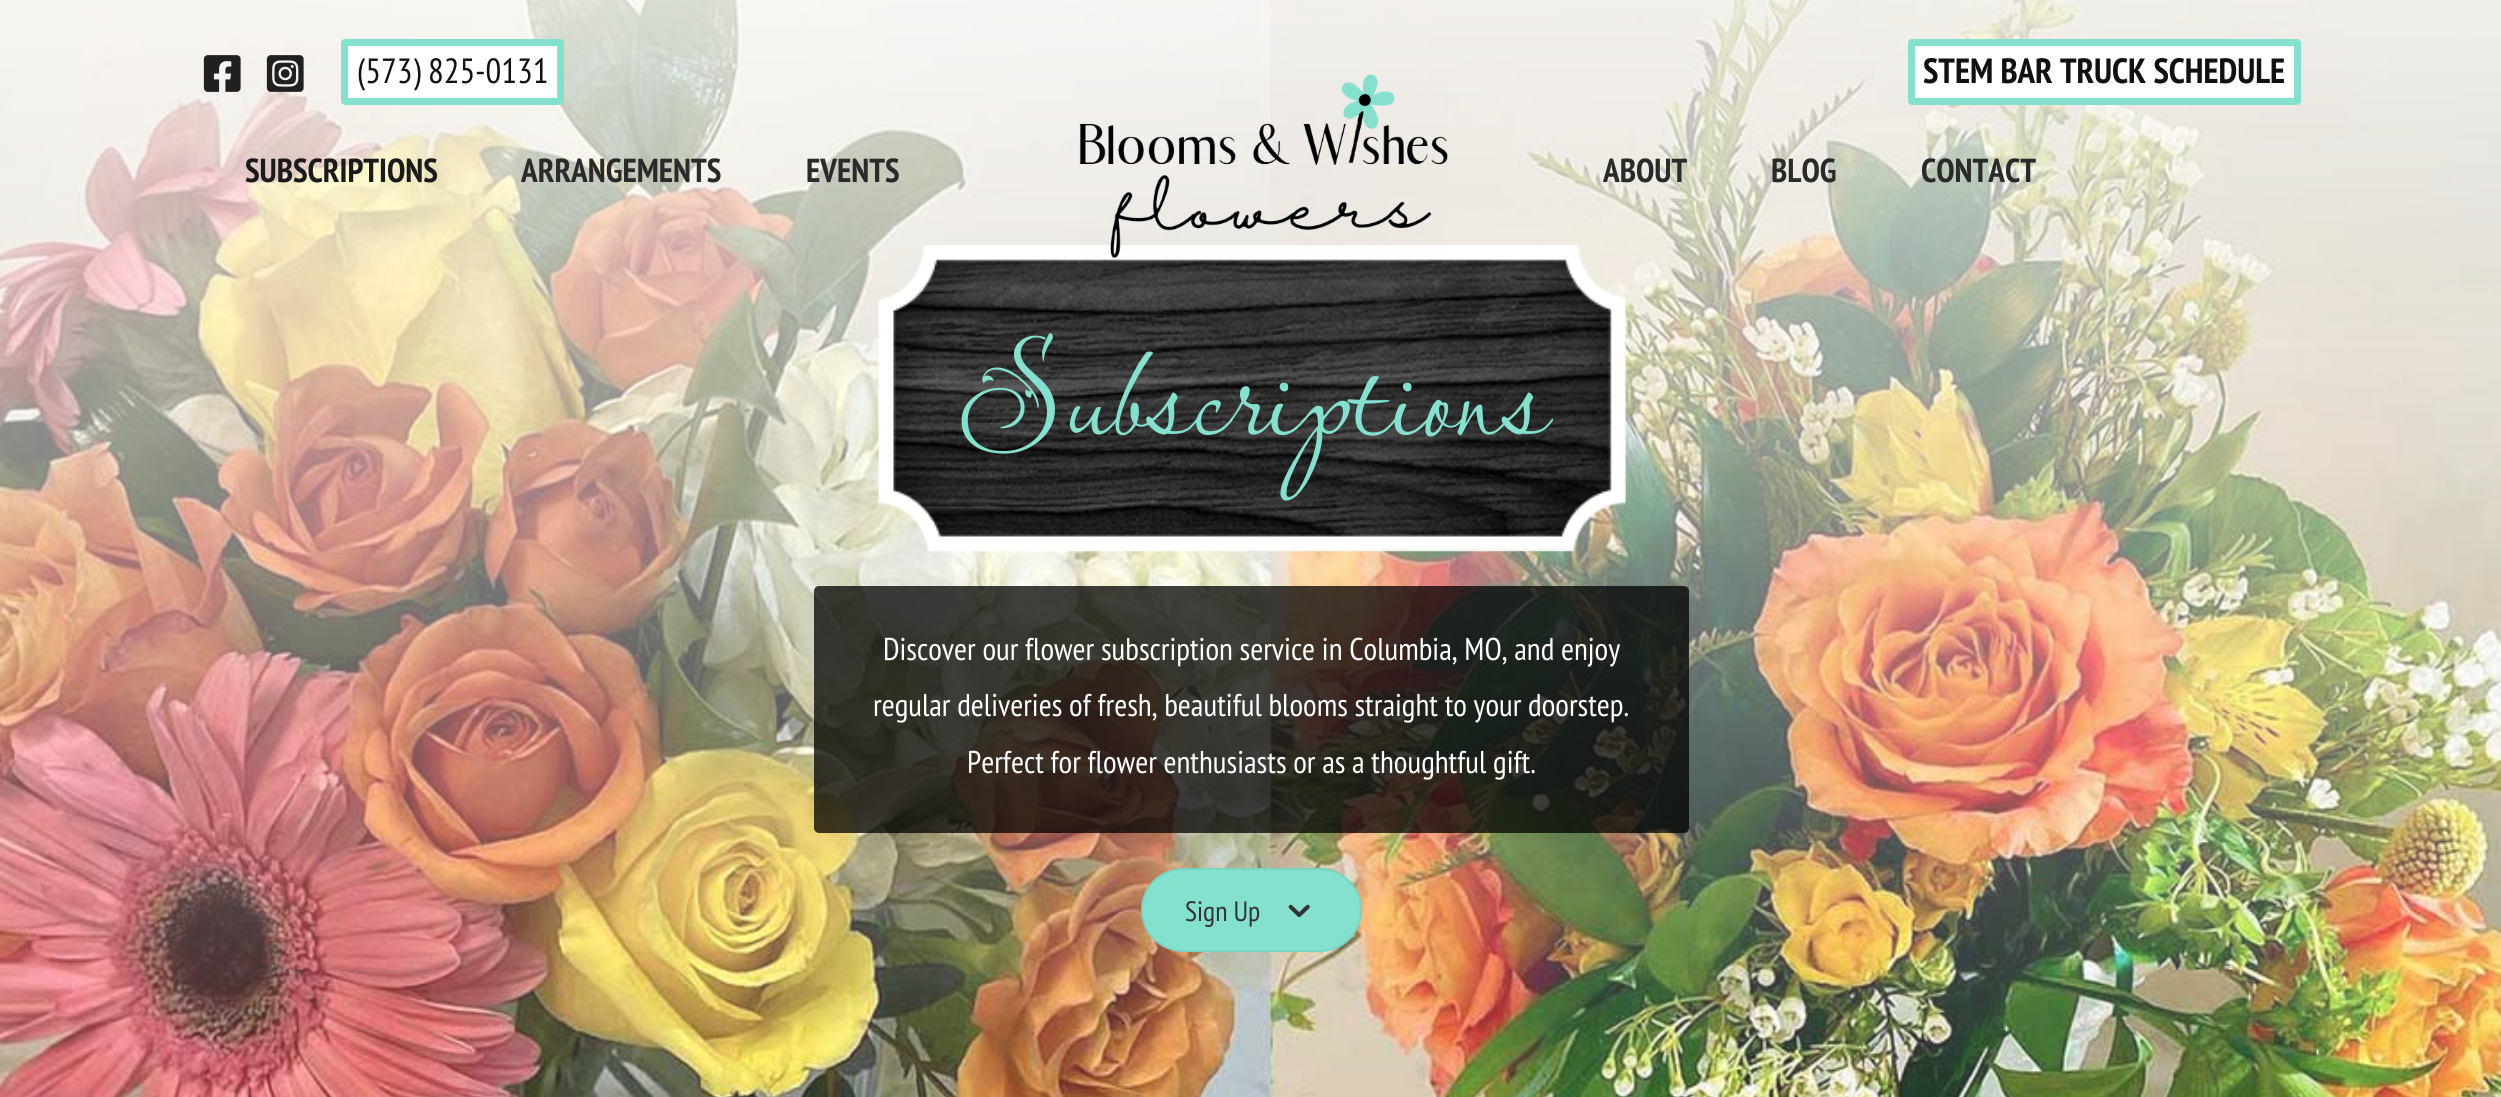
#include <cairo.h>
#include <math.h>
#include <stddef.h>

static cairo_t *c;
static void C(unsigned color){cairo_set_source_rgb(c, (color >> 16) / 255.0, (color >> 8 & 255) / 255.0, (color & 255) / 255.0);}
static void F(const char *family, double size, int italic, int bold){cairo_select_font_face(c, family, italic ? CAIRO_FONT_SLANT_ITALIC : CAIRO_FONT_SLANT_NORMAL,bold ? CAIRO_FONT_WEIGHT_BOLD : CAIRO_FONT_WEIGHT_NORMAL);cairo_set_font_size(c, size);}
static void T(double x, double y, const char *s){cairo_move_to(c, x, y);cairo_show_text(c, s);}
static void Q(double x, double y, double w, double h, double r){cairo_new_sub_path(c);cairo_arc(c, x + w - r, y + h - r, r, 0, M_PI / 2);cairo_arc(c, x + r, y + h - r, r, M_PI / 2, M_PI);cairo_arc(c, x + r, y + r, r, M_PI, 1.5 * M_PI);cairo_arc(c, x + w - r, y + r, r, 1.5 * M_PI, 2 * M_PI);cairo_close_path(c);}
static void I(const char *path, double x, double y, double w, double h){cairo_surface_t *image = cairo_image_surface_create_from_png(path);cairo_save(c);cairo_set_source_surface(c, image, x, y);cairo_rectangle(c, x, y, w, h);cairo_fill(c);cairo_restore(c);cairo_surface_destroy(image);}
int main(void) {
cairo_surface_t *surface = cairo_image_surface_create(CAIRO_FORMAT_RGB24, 2501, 1097);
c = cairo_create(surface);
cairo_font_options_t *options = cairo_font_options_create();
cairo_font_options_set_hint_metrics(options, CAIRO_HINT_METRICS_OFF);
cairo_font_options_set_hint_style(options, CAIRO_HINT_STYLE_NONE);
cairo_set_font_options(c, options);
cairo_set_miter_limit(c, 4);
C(0xffffff);
cairo_paint(c);
I("4.png",0,0,2501,1097);
I("1.png",203,55,38,37);
I("2.png",266,55,38,37);
C(0xffffff);
Q(344.5,42.5,216,59,.5);
cairo_fill_preserve(c);
C(0x84e1ce);
cairo_set_line_width(c,7);
cairo_stroke(c);
F("PT Sans Narrow",35,0,0);
C(0x111111);
T(357,83,"(573) 825-0131");
C(0xffffff);
Q(1911.5,42.5,386,59,.5);
cairo_fill_preserve(c);
C(0x84e1ce);
cairo_stroke(c);
F("PT Sans Narrow",35,0,1);
C(0x111111);
T(1923,83,"STEM BAR TRUCK SCHEDULE");
F("PT Sans Narrow",33.25,0,1);
C(0x1a1a1a);
T(245,182,"SUBSCRIPTIONS");
C(0x2a2a2a);
T(521,182,"ARRANGEMENTS");
T(806,182,"EVENTS");
I("5.png",878,245,748,307);
I("3.png",1079,74,369,184);
T(1603,182,"ABOUT");
T(1771,182,"BLOG");
T(1921,182,"CONTACT");
F("Lavishly Yours",140,0,0);
C(0x84e1ce);
T(956,434,"Subscriptions");
cairo_set_source_rgba(c,0,0,0,0.75);
Q(814,586,875,247,5);
cairo_fill(c);
F("PT Sans Narrow",31.5,0,0);
C(0xffffff);
T(883,660,"Discover our flower subscription service in Columbia, MO, and enjoy");
T(873,716,"regular deliveries of fresh, beautiful blooms straight to your doorstep.");
T(967,773,"Perfect for flower enthusiasts or as a thoughtful gift.");
C(0x84e1ce);
Q(1142,869,219,82,41);
cairo_fill_preserve(c);
C(0x78d5c2);
cairo_set_line_width(c,2);
cairo_stroke(c);
F("PT Sans Narrow",28,0,0);
C(0x333333);
T(1185,921,"Sign Up");
I("6.png",1288,904,22,14);
cairo_surface_write_to_png(surface, "o.png");
cairo_font_options_destroy(options);
cairo_destroy(c);
cairo_surface_destroy(surface);
return 0;
}
